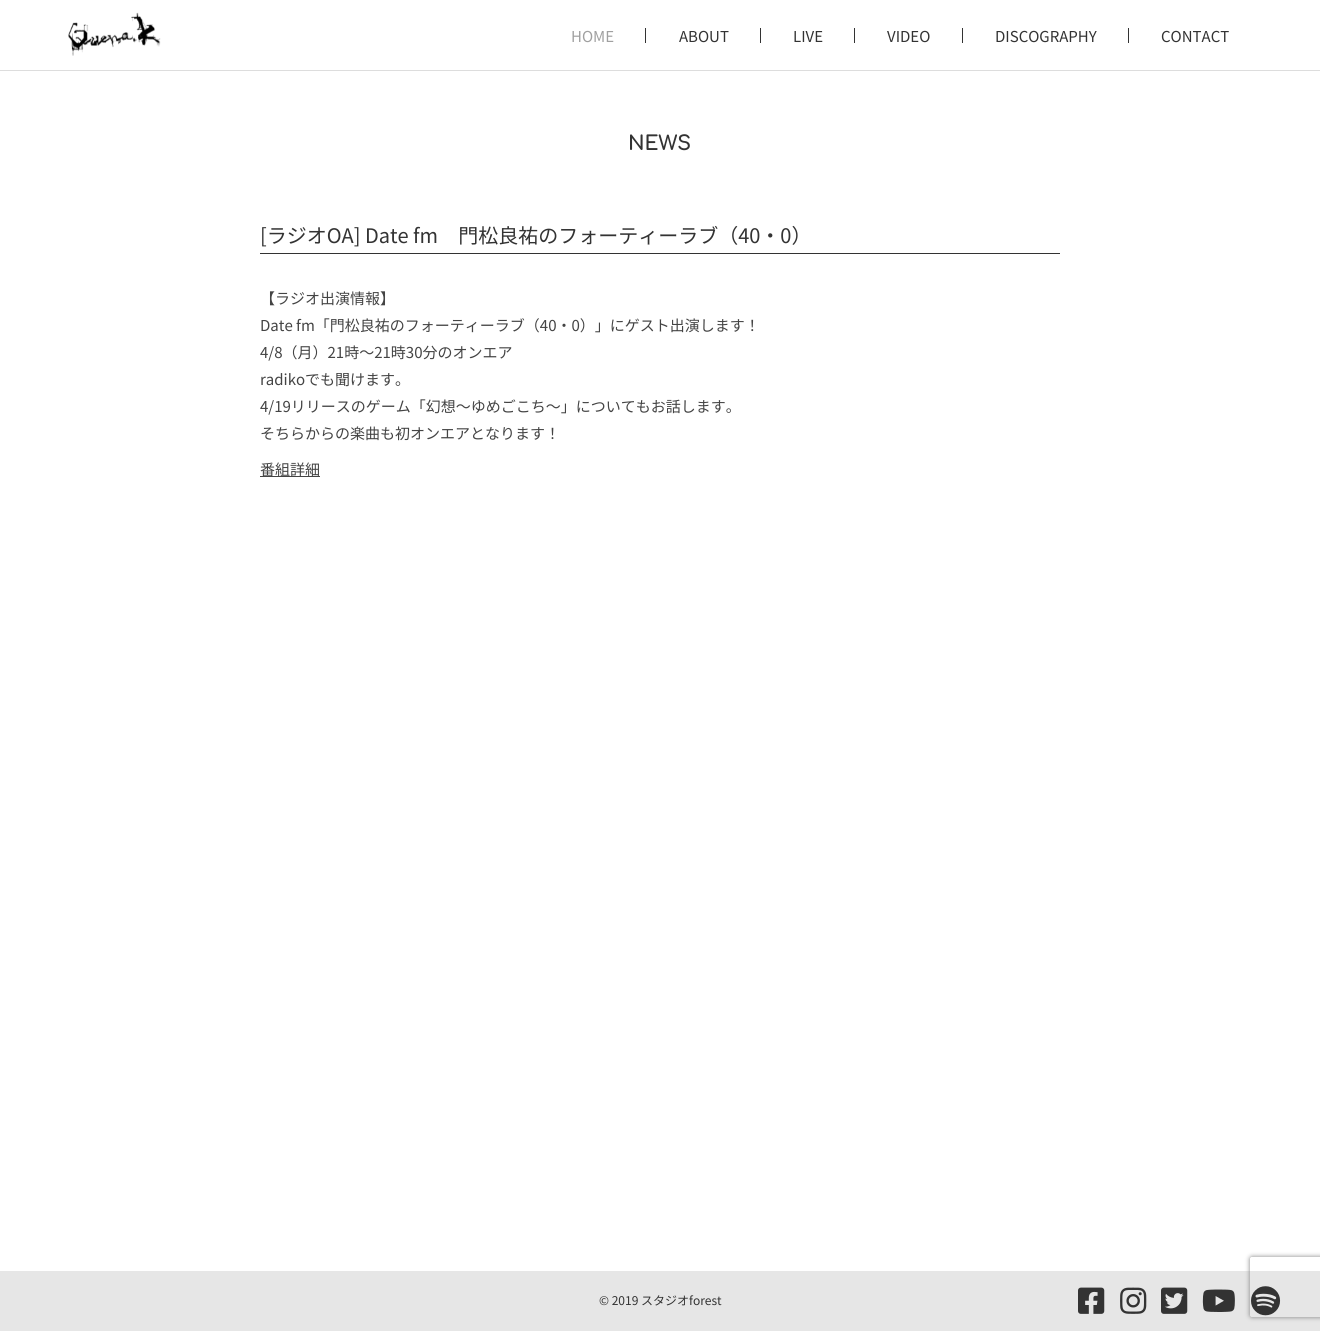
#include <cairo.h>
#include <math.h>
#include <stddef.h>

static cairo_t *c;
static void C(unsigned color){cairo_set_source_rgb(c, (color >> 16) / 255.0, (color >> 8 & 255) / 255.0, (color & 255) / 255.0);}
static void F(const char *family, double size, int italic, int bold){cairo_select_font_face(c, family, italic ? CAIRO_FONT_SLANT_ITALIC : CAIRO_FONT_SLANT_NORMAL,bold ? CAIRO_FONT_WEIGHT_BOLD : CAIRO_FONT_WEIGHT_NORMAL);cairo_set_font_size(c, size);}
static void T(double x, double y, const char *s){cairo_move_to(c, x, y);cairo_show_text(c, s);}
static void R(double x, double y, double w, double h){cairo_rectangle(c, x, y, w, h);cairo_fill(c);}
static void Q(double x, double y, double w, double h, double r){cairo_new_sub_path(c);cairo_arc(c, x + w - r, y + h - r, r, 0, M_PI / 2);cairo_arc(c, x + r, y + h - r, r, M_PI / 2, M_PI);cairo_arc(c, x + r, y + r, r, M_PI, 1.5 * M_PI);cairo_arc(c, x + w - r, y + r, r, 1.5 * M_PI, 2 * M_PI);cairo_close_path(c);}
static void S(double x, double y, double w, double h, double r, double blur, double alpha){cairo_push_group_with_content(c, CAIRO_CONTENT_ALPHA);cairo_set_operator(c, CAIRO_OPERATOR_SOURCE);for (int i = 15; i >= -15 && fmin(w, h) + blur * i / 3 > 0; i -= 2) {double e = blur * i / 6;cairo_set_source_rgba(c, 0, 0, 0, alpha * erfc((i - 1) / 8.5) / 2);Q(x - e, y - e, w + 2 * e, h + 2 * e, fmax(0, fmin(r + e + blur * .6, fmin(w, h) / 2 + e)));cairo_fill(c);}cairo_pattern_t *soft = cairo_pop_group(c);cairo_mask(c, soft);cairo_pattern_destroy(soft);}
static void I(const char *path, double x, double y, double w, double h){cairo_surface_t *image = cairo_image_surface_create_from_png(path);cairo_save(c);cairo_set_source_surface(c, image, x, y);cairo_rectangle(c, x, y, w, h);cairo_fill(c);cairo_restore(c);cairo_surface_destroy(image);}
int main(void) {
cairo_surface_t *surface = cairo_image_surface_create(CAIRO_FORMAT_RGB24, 1320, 1331);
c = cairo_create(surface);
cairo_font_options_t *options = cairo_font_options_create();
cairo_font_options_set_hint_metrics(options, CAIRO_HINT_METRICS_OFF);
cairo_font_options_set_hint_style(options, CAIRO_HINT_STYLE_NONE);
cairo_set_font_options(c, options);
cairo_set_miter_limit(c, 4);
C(0xffffff);
cairo_paint(c);
C(0xdddddd);
R(0,70,1320,1);
I("1.png",68,12,93,44);
C(0x333333);
R(645,28,1,15);
F("Noto Sans JP Thin",15,0,0);
C(0xa0a0a0);
T(571,42,"HOME");
C(0x333333);
R(760,28,1,15);
T(679,42,"ABOUT");
R(854,28,1,15);
T(793,42,"LIVE");
R(962,28,1,15);
T(887,42,"VIDEO");
R(1128,28,1,15);
T(995,42,"DISCOGRAPHY");
T(1161,42,"CONTACT");
F("Comfortaa",20,0,1);
T(628,150,"NEWS");
R(260,253,800,1);
F("Noto Sans JP Thin",20,0,0);
T(260,243,"[ラジオOA] Date fm　門松良祐のフォーティーラブ（40・0）");
F("Noto Sans JP Thin",15,0,0);
C(0x444444);
T(260,304,"【ラジオ出演情報】");
T(260,331,"Date fm「門松良祐のフォーティーラブ（40・0）」にゲスト出演します！");
T(260,358,"4/8（月）21時～21時30分のオンエア");
T(260,385,"radikoでも聞けます。");
T(260,412,"4/19リリースのゲーム「幻想〜ゆめごこち〜」についてもお話します。");
T(260,439,"そちらからの楽曲も初オンエアとなります！");
R(260,476,60,1);
T(260,475,"番組詳細");
C(0xe6e6e6);
R(0,1271,1320,60);
F("Noto Sans JP Thin",12,0,0);
C(0x333333);
T(599,1305,"© 2019 スタジオforest");
I("2.png",1078,1287,27,27);
I("3.png",1120,1287,27,27);
I("4.png",1161,1287,27,27);
I("5.png",1202,1289,33,23);
I("6.png",1251,1286,30,30);
cairo_save(c);
cairo_set_fill_rule(c,CAIRO_FILL_RULE_EVEN_ODD);
cairo_new_path(c);
cairo_move_to(c,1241,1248);
cairo_line_to(c,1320,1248);
cairo_line_to(c,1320,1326);
cairo_line_to(c,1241,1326);
cairo_close_path(c);
cairo_move_to(c,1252,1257);
cairo_line_to(c,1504,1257);
cairo_curve_to(c,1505,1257,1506,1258,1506,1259);
cairo_line_to(c,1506,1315);
cairo_curve_to(c,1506,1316,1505,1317,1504,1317);
cairo_line_to(c,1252,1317);
cairo_curve_to(c,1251,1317,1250,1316,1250,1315);
cairo_line_to(c,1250,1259);
cairo_curve_to(c,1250,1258,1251,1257,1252,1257);
cairo_close_path(c);
cairo_clip(c);
C(0x808080);
S(1250,1257,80,60,2,2.5,1);
cairo_restore(c);
cairo_surface_write_to_png(surface, "o.png");
cairo_font_options_destroy(options);
cairo_destroy(c);
cairo_surface_destroy(surface);
return 0;
}
